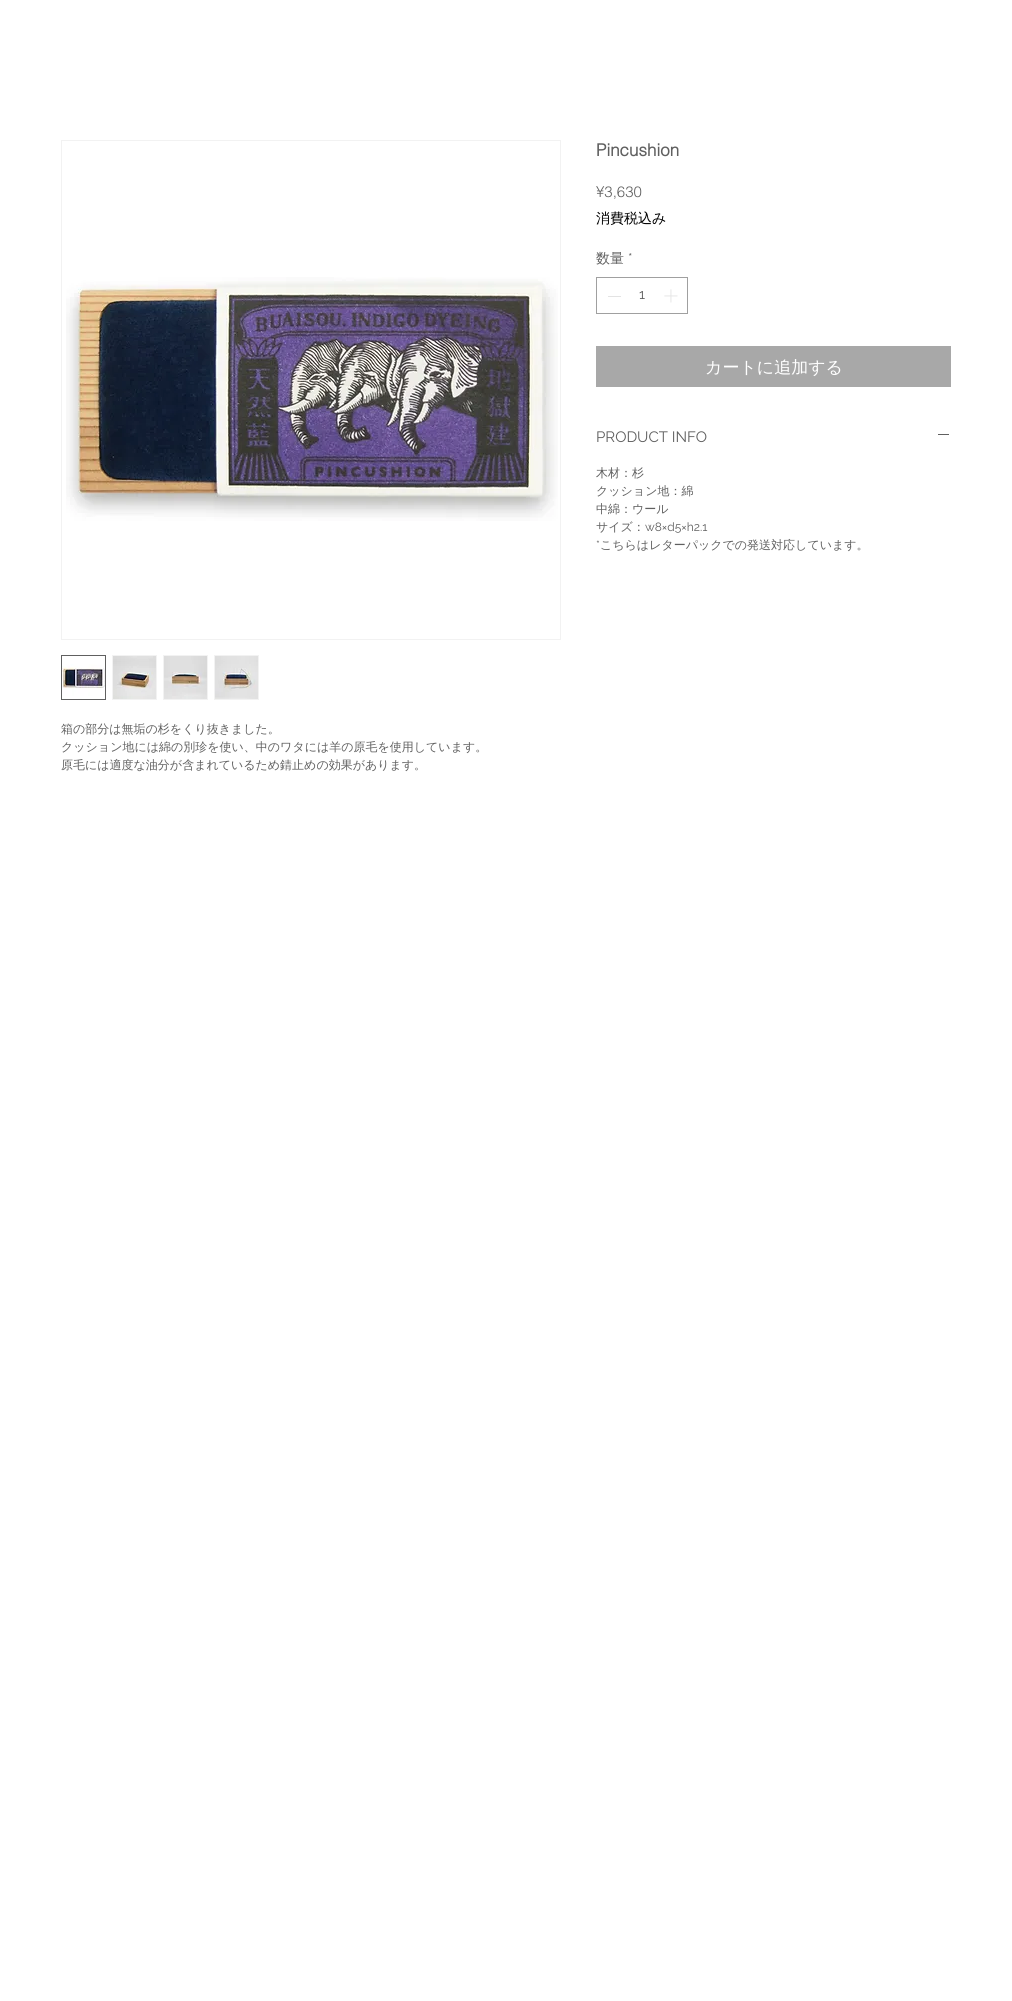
#include <cairo.h>
#include <math.h>
#include <stddef.h>

static cairo_t *c;
static void C(unsigned color){cairo_set_source_rgb(c, (color >> 16) / 255.0, (color >> 8 & 255) / 255.0, (color & 255) / 255.0);}
static void F(const char *family, double size, int italic, int bold){cairo_select_font_face(c, family, italic ? CAIRO_FONT_SLANT_ITALIC : CAIRO_FONT_SLANT_NORMAL,bold ? CAIRO_FONT_WEIGHT_BOLD : CAIRO_FONT_WEIGHT_NORMAL);cairo_set_font_size(c, size);}
static void T(double x, double y, const char *s){cairo_move_to(c, x, y);cairo_show_text(c, s);}
static void R(double x, double y, double w, double h){cairo_rectangle(c, x, y, w, h);cairo_fill(c);}
static void I(const char *path, double x, double y, double w, double h){cairo_surface_t *image = cairo_image_surface_create_from_png(path);cairo_save(c);cairo_set_source_surface(c, image, x, y);cairo_rectangle(c, x, y, w, h);cairo_fill(c);cairo_restore(c);cairo_surface_destroy(image);}
int main(void) {
cairo_surface_t *surface = cairo_image_surface_create(CAIRO_FORMAT_RGB24, 1012, 2001);
c = cairo_create(surface);
cairo_font_options_t *options = cairo_font_options_create();
cairo_font_options_set_hint_metrics(options, CAIRO_HINT_METRICS_OFF);
cairo_font_options_set_hint_style(options, CAIRO_HINT_STYLE_NONE);
cairo_set_font_options(c, options);
cairo_set_miter_limit(c, 4);
C(0xffffff);
cairo_paint(c);
F("helvetica",17,0,1);
C(0x606060);
T(596,156,"Pincushion");
F("helvetica Light",15,0,0);
T(596,197,"¥3,630");
F("WenQuanYi Zen Hei Medium",14,0,0);
C(0x000000);
T(596,223,"消費税込み");
C(0x606060);
T(596,263,"数量");
F("Raleway",14,0,0);
T(628,263,"*");
cairo_rectangle(c,596.5,277.5,91,36);
C(0xa0a0a0);
cairo_set_line_width(c,1);
cairo_stroke(c);
C(0xe3e3e3);
R(608,296,13,1);
C(0x606060);
T(639,299,"1");
I("1.png",664,289,14,14);
C(0xa8a8a8);
R(596,346,355,41);
F("WenQuanYi Zen Hei Medium",17,0,0);
C(0xffffff);
T(705,373,"カートに追加する");
F("Raleway",15,0,0);
C(0x606060);
T(596,442,"PRODUCT INFO");
R(938,434,11,1);
F("WenQuanYi Zen Hei Medium",12,0,0);
T(596,477,"木材：杉");
T(596,495,"クッション地：綿");
T(596,513,"中綿：ウール");
T(596,531,"サイズ：");
F("Raleway",12,0,0);
T(645,531,"w8×d5×h2.1");
T(596,549,"*");
F("WenQuanYi Zen Hei Medium",12,0,0);
T(600,549,"こちらはレターパックでの発送対応しています。");
cairo_rectangle(c,61.5,140.5,499,499);
C(0xf2f2f2);
cairo_stroke(c);
I("2.png",66,277,492,244);
cairo_rectangle(c,61.5,655.5,44,44);
C(0x606060);
cairo_stroke(c);
I("3.png",62,656,43,43);
C(0xf2f2f2);
R(112,655,45,45);
I("4.png",113,656,43,43);
R(163,655,45,45);
I("5.png",164,656,43,43);
R(214,655,45,45);
I("6.png",215,656,43,43);
C(0x606060);
T(61,733,"箱の部分は無垢の杉をくり抜きました。");
T(61,751,"クッション地には綿の別珍を使い、中のワタには羊の原毛を使用しています。");
T(61,769,"原毛には適度な油分が含まれているため錆止めの効果があります。");
cairo_surface_write_to_png(surface, "o.png");
cairo_font_options_destroy(options);
cairo_destroy(c);
cairo_surface_destroy(surface);
return 0;
}
